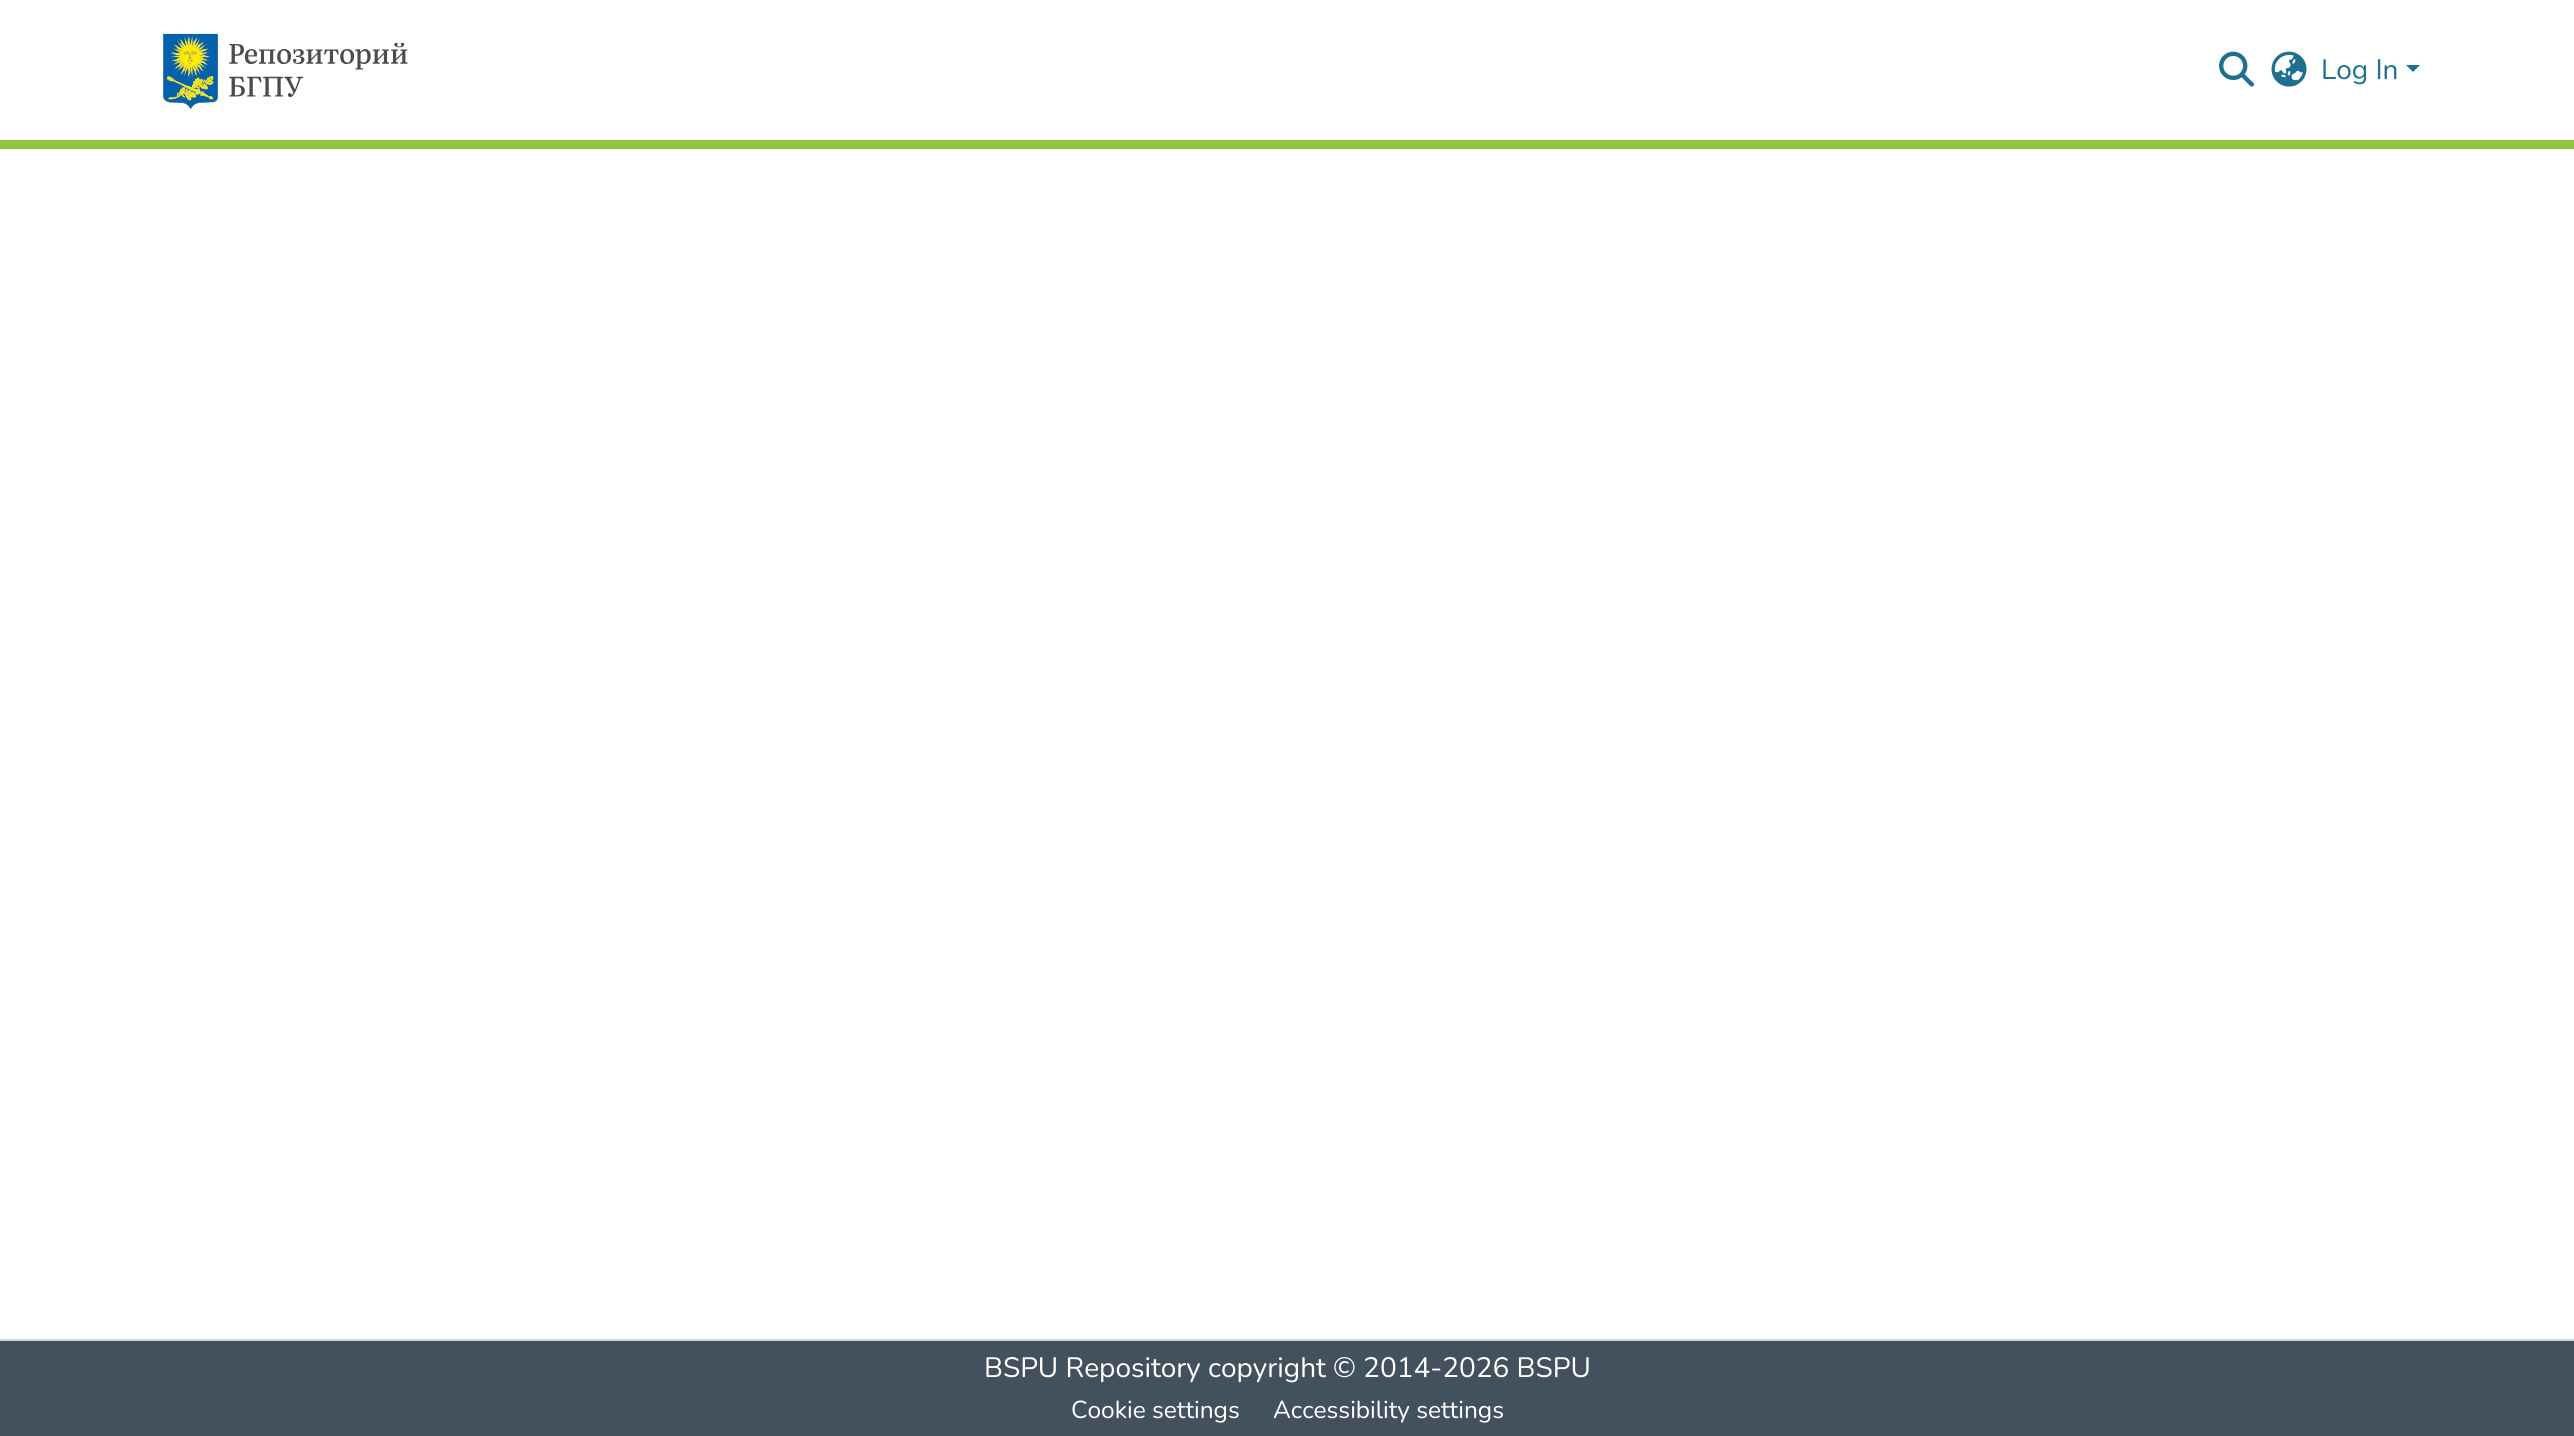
#include <cairo.h>
#include <math.h>
#include <stddef.h>

static cairo_t *c;
static void C(unsigned color){cairo_set_source_rgb(c, (color >> 16) / 255.0, (color >> 8 & 255) / 255.0, (color & 255) / 255.0);}
static void F(const char *family, double size, int italic, int bold){cairo_select_font_face(c, family, italic ? CAIRO_FONT_SLANT_ITALIC : CAIRO_FONT_SLANT_NORMAL,bold ? CAIRO_FONT_WEIGHT_BOLD : CAIRO_FONT_WEIGHT_NORMAL);cairo_set_font_size(c, size);}
static void T(double x, double y, const char *s){cairo_move_to(c, x, y);cairo_show_text(c, s);}
static void R(double x, double y, double w, double h){cairo_rectangle(c, x, y, w, h);cairo_fill(c);}
static void I(const char *path, double x, double y, double w, double h){cairo_surface_t *image = cairo_image_surface_create_from_png(path);cairo_save(c);cairo_set_source_surface(c, image, x, y);cairo_rectangle(c, x, y, w, h);cairo_fill(c);cairo_restore(c);cairo_surface_destroy(image);}
int main(void) {
cairo_surface_t *surface = cairo_image_surface_create(CAIRO_FORMAT_RGB24, 2574, 1436);
c = cairo_create(surface);
cairo_font_options_t *options = cairo_font_options_create();
cairo_font_options_set_hint_metrics(options, CAIRO_HINT_METRICS_OFF);
cairo_font_options_set_hint_style(options, CAIRO_HINT_STYLE_NONE);
cairo_set_font_options(c, options);
cairo_set_miter_limit(c, 4);
C(0xffffff);
cairo_paint(c);
C(0x92c642);
R(0,140,2574,9);
I("1.png",163,33,245,76);
I("2.png",2219,51,35,36);
I("3.png",2271,51,36,36);
F("Nunito",28,0,0);
C(0x1e6f90);
T(2321,79,"Log In");
cairo_new_path(c);
cairo_move_to(c,2406,65);
cairo_line_to(c,2420,65);
cairo_line_to(c,2413,72);
cairo_close_path(c);
cairo_fill(c);
C(0x43515f);
R(0,1341,2574,95);
C(0xced4da);
R(0,1339,2574,2);
C(0xffffff);
T(984,1377,"BSPU Repository copyright © 2014-2026 BSPU");
F("Nunito",24.5,0,0);
T(1071,1418,"Cookie settings");
C(0x495057);
R(1255,1390,2,40);
C(0xffffff);
T(1273,1418,"Accessibility settings");
cairo_surface_write_to_png(surface, "o.png");
cairo_font_options_destroy(options);
cairo_destroy(c);
cairo_surface_destroy(surface);
return 0;
}
